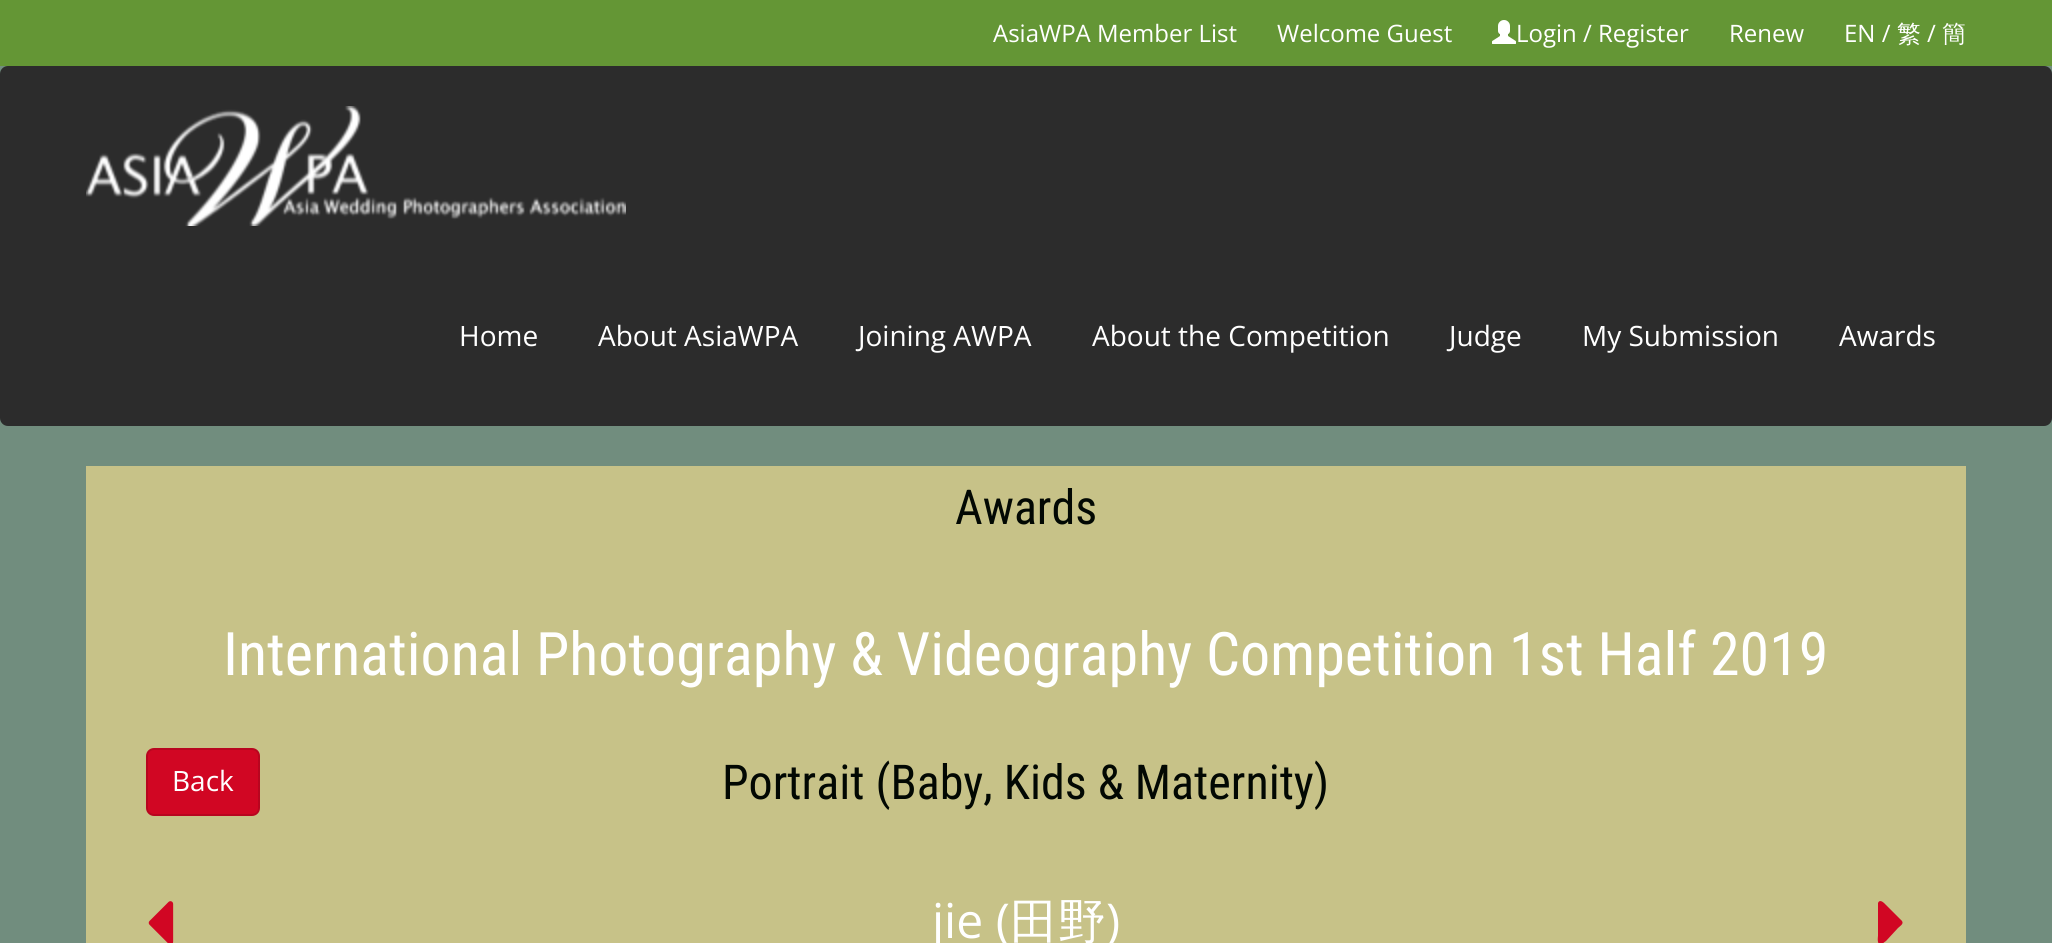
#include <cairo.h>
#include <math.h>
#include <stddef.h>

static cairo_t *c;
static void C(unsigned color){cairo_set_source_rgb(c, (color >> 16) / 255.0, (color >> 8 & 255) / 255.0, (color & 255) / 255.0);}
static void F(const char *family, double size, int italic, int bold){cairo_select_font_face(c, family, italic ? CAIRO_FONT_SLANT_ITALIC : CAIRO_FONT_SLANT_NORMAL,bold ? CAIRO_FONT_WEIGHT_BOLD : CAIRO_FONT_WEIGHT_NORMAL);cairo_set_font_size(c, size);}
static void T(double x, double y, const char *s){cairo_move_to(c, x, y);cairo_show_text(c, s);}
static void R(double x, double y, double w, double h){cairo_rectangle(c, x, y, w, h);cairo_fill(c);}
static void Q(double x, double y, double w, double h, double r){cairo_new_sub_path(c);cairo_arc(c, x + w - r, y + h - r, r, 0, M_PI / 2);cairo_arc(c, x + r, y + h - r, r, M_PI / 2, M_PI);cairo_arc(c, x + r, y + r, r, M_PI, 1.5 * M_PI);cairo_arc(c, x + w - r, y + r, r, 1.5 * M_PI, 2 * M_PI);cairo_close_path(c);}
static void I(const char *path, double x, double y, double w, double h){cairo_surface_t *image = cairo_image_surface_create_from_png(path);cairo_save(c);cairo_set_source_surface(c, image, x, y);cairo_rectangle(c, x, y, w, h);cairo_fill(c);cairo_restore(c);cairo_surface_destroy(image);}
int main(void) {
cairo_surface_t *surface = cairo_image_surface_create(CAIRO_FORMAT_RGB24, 2052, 943);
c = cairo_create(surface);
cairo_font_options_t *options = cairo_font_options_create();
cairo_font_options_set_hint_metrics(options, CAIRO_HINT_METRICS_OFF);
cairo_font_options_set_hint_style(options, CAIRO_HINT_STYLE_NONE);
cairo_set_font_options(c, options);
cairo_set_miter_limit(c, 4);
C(0x718d7e);
cairo_paint(c);
C(0x649635);
R(0,0,2052,66);
F("Open Sans",24,0,0);
C(0xffffff);
T(993,42,"AsiaWPA Member List");
T(1277,42,"Welcome Guest");
I("1.png",1492,20,24,24);
T(1516,42,"Login / Register");
T(1729,42,"Renew");
T(1844,42,"EN /");
F("WenQuanYi Zen Hei Medium",24,0,0);
T(1897,42,"繁");
F("Open Sans",24,0,0);
T(1927,42,"/");
F("WenQuanYi Zen Hei Medium",24,0,0);
T(1942,42,"簡");
C(0x2c2c2c);
Q(0,66,2052,360,8);
cairo_fill(c);
I("2.png",86,106,540,120);
F("Open Sans",28,0,0);
C(0xffffff);
T(459,346,"Home");
T(598,346,"About AsiaWPA");
T(858,346,"Joining AWPA");
T(1092,346,"About the Competition");
T(1449,346,"Judge");
T(1582,346,"My Submission");
T(1839,346,"Awards");
C(0xc7c288);
R(86,466,1880,477);
F("Roboto Condensed",48,0,0);
C(0x020803);
T(955,524,"Awards");
F("Roboto Condensed",60,0,0);
C(0xffffff);
T(223,675,"International Photography & Videography Competition 1st Half 2019");
C(0xd10623);
Q(147,749,112,66,7);
cairo_fill_preserve(c);
C(0xb8051f);
cairo_stroke(c);
F("Open Sans",28,0,0);
C(0xffffff);
T(172,791,"Back");
F("Roboto Condensed",48,0,0);
C(0x020803);
T(722,799,"Portrait (Baby, Kids & Maternity)");
I("3.png",148,901,26,42);
F("Open Sans",48,0,0);
C(0xffffff);
T(932,938,"jie (");
F("WenQuanYi Zen Hei Medium",48,0,0);
T(1010,938,"田野");
F("Open Sans",48,0,0);
T(1106,938,")");
C(0xd10623);
cairo_new_path(c);
cairo_move_to(c,1902,921);
cairo_curve_to(c,1904,924,1900,926,1898,928);
cairo_line_to(c,1886,941);
cairo_curve_to(c,1884,942,1881,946,1879,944);
cairo_curve_to(c,1877,942,1878,936,1878,936);
cairo_line_to(c,1878,903);
cairo_curve_to(c,1880,898,1885,904,1886,905);
cairo_close_path(c);
cairo_fill(c);
cairo_surface_write_to_png(surface, "o.png");
cairo_font_options_destroy(options);
cairo_destroy(c);
cairo_surface_destroy(surface);
return 0;
}
